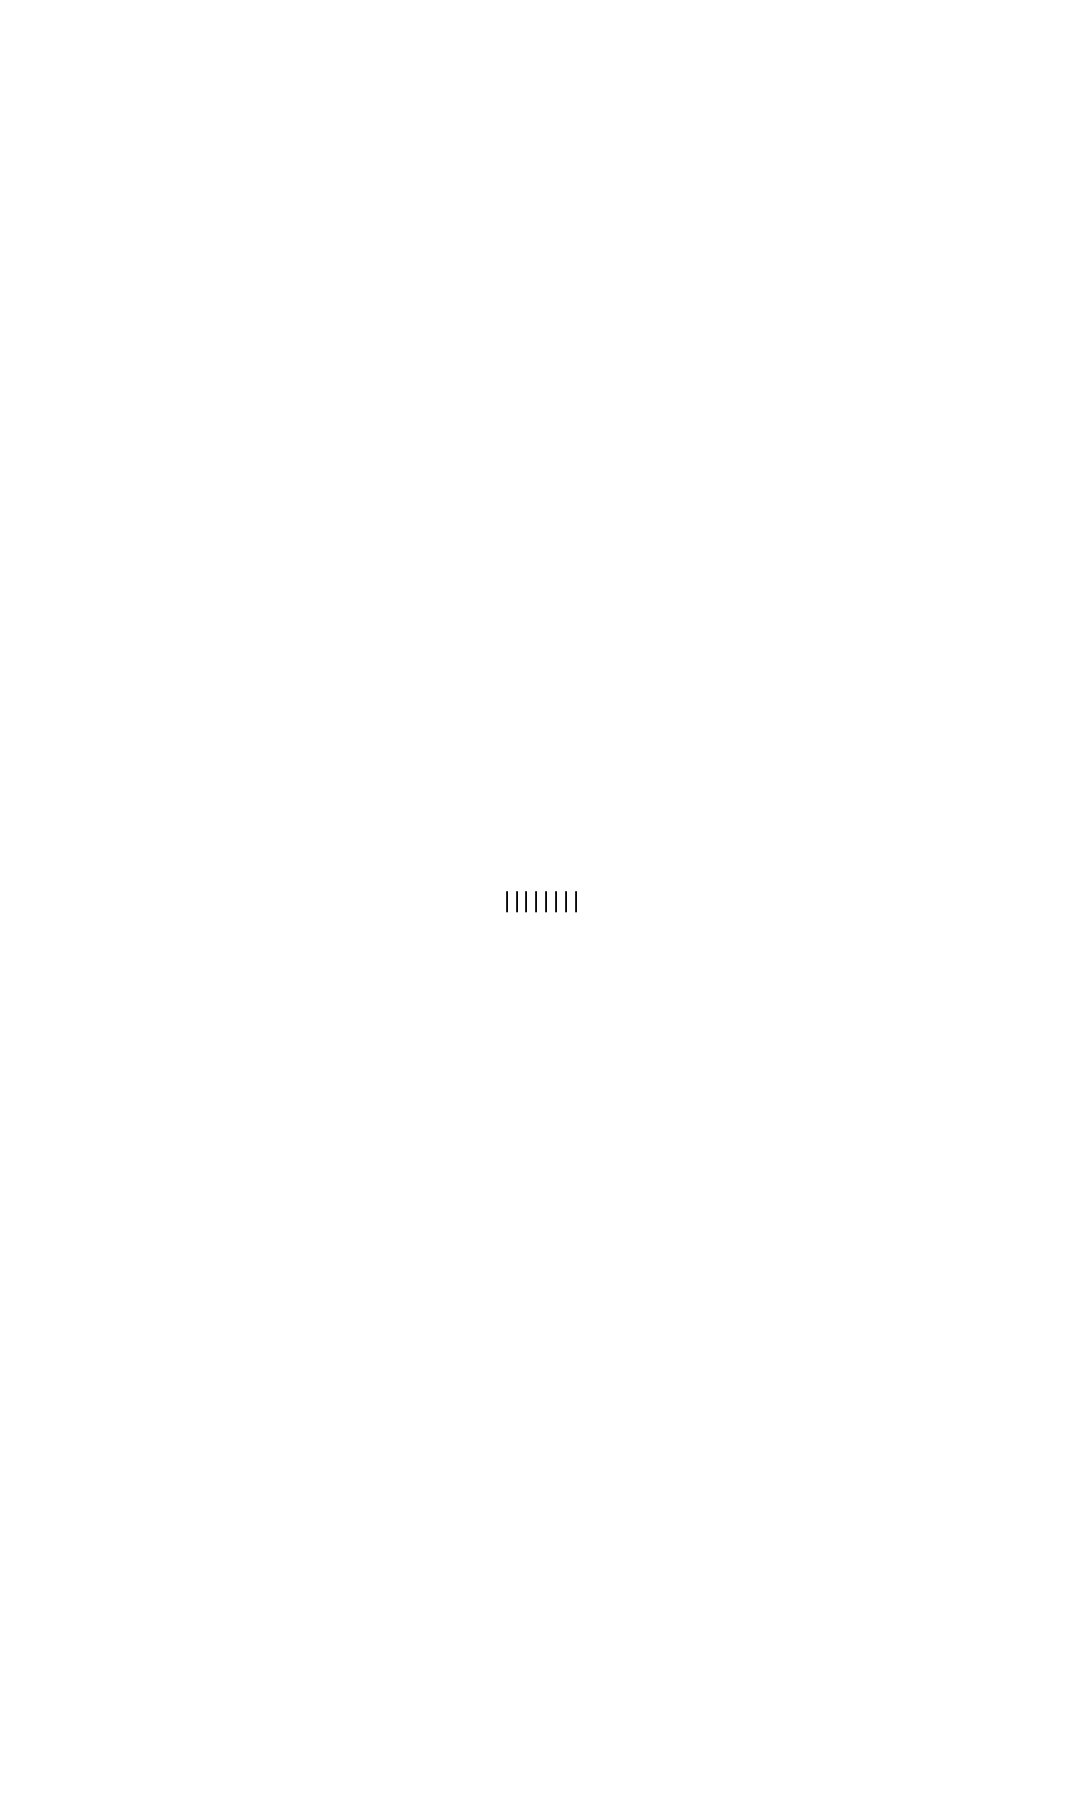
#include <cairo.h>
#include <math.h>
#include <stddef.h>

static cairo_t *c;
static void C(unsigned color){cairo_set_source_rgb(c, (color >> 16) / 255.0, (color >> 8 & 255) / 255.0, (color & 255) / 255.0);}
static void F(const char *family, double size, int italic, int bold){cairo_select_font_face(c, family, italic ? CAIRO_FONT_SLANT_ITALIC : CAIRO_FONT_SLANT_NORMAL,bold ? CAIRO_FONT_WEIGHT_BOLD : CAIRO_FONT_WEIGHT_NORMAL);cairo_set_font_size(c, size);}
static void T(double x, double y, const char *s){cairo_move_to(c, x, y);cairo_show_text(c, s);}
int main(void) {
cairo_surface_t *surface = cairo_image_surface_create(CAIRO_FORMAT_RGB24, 1082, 1801);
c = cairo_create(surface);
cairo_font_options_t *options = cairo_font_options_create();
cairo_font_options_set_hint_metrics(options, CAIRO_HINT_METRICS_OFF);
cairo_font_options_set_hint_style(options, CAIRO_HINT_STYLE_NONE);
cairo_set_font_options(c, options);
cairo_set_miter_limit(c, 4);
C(0xffffff);
cairo_paint(c);
F("Roboto",25,0,0);
C(0x000000);
T(504,909,"|");
T(514,909,"|");
T(523,909,"|");
T(533,909,"|");
T(543,909,"|");
T(553,909,"|");
T(563,909,"|");
T(573,909,"|");
cairo_surface_write_to_png(surface, "o.png");
cairo_font_options_destroy(options);
cairo_destroy(c);
cairo_surface_destroy(surface);
return 0;
}
